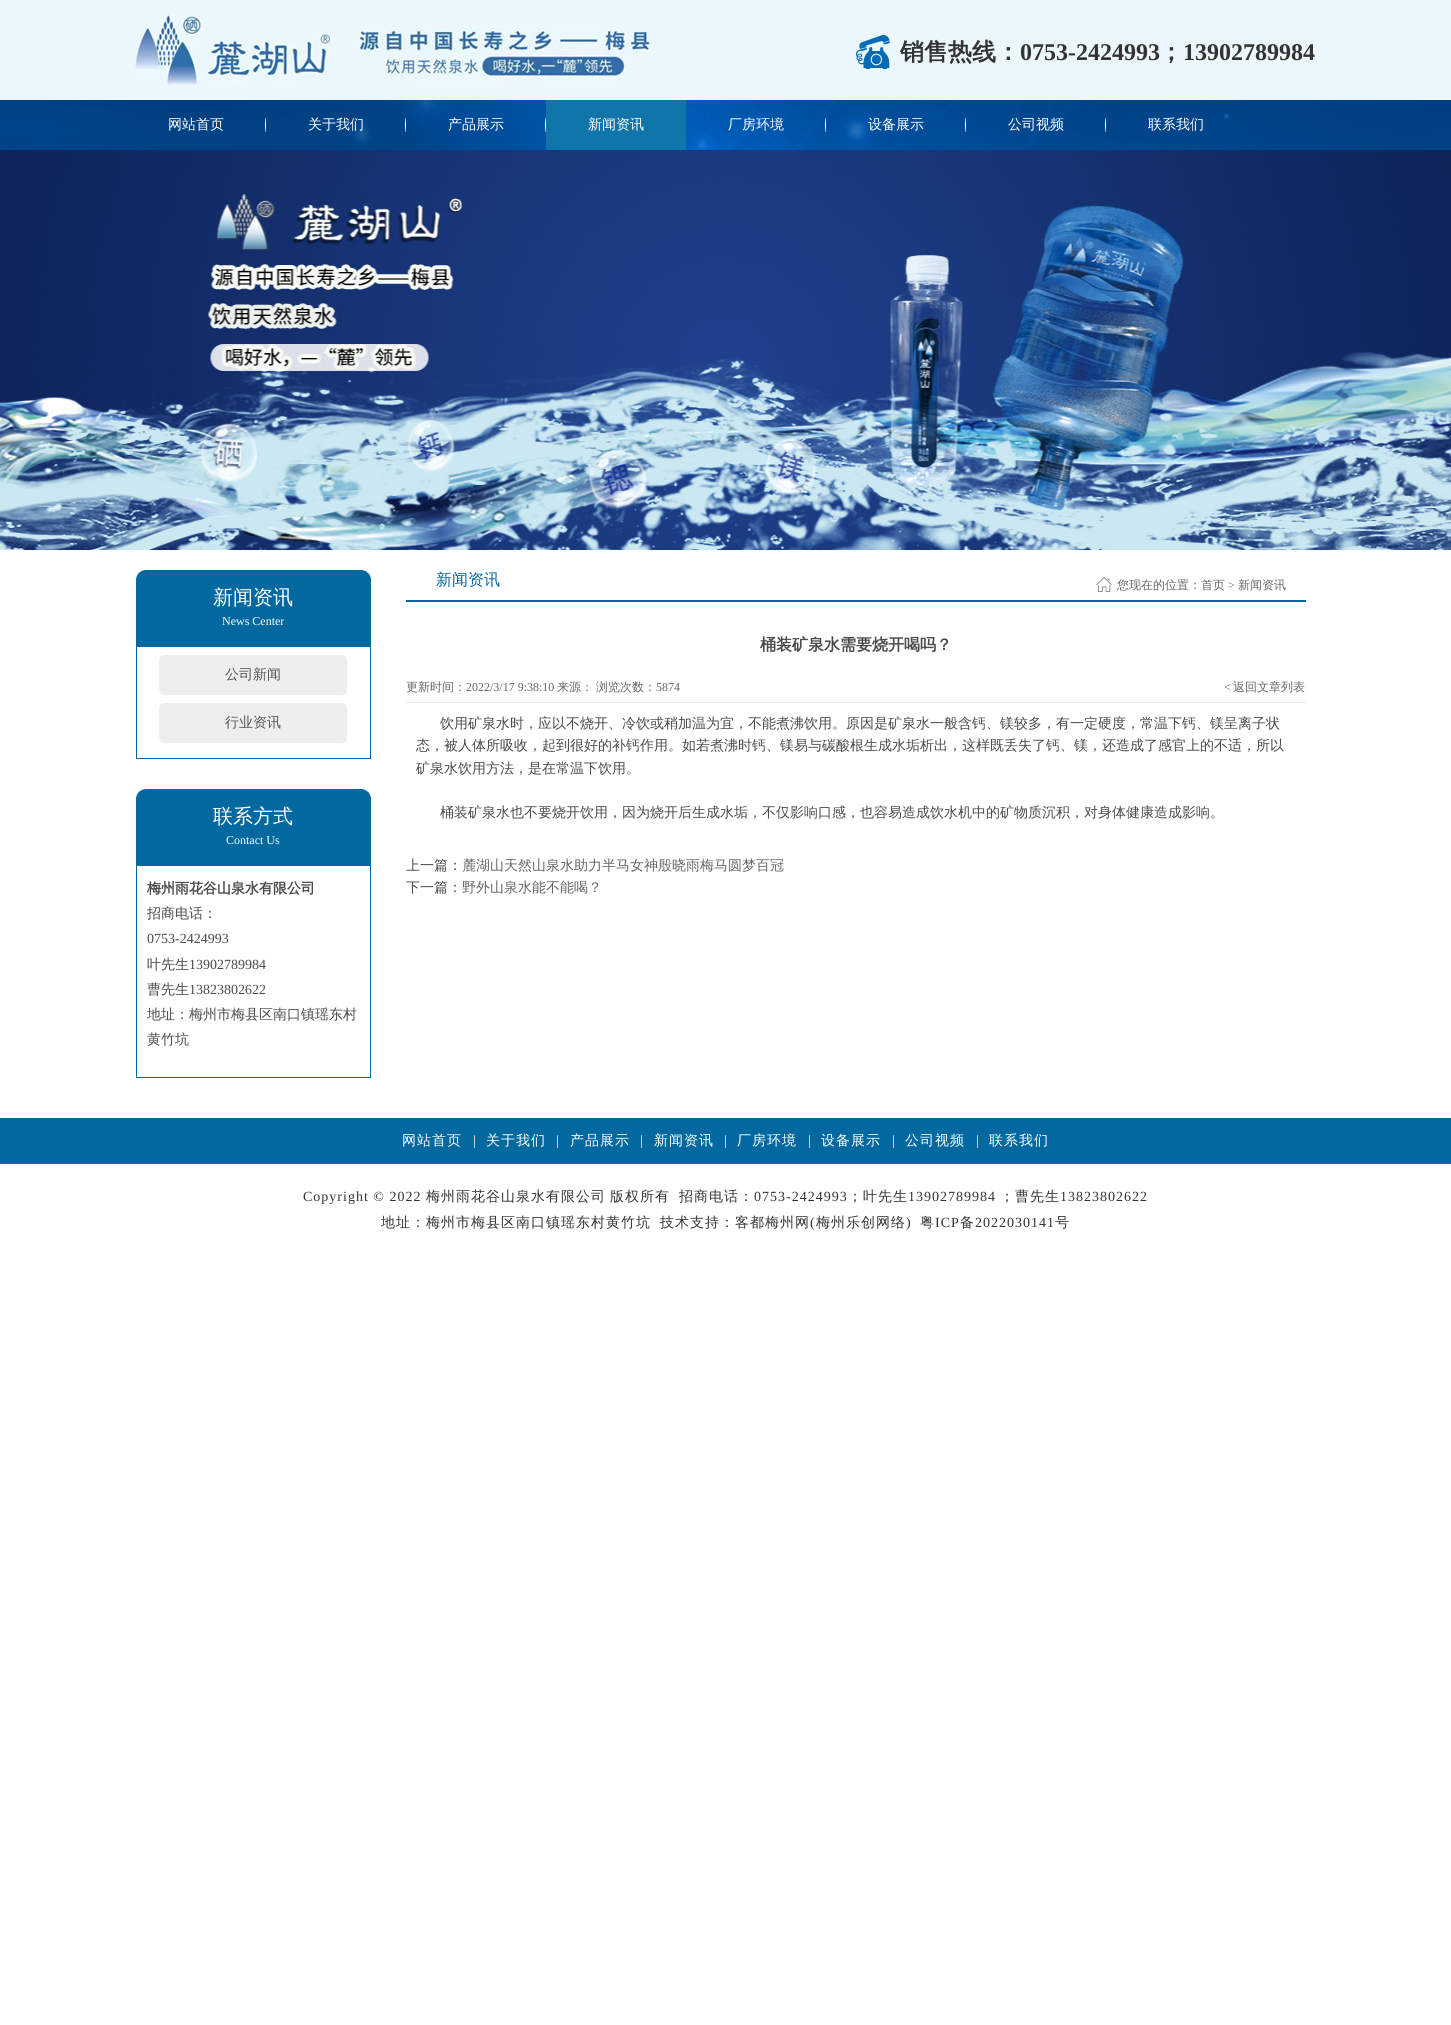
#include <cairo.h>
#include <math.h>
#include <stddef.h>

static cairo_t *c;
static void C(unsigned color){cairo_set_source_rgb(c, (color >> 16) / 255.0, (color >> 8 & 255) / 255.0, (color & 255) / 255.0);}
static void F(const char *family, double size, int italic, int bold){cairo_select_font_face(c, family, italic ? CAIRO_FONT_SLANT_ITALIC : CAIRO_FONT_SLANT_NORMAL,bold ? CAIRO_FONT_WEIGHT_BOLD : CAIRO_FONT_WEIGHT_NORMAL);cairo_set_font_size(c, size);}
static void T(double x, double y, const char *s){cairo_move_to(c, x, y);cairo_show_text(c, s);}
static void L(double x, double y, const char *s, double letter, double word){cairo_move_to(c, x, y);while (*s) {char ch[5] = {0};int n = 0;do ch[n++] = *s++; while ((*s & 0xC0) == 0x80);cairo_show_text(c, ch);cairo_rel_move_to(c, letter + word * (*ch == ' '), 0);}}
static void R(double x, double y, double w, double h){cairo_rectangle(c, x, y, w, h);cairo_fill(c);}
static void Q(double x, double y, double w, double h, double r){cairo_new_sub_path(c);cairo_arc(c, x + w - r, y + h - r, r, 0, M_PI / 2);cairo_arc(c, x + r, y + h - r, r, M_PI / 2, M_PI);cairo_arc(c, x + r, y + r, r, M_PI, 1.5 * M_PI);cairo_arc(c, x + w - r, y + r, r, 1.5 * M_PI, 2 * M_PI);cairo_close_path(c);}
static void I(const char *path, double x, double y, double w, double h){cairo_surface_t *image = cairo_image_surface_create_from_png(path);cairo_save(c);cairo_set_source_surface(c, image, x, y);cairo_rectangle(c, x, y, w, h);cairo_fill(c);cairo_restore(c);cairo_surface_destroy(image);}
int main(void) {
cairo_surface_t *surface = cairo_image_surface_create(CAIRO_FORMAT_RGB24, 1451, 2025);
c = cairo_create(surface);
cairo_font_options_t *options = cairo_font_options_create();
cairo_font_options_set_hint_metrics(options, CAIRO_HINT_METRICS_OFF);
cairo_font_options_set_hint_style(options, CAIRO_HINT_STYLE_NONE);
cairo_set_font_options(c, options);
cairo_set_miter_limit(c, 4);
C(0xffffff);
cairo_paint(c);
C(0xecf7fb);
R(0,0,1451,100);
I("1.png",135,15,523,70);
I("2.png",856,35,34,34);
F("WenQuanYi Zen Hei",24,0,1);
C(0x333333);
T(900,60,"销售热线：");
F("Liberation Serif",24,0,1);
T(1020,60,"0753-2424993");
F("WenQuanYi Zen Hei",24,0,1);
T(1159,60,"；");
F("Liberation Serif",24,0,1);
T(1183,60,"13902789984");
I("3.png",0,100,1451,50);
I("4.png",265,118,1,14);
F("WenQuanYi Zen Hei Medium",14,0,0);
C(0xffffff);
T(168,129,"网站首页");
I("5.png",405,118,1,14);
T(308,129,"关于我们");
I("6.png",545,118,1,14);
T(448,129,"产品展示");
C(0x1075ab);
R(546,100,140,50);
C(0xffffff);
T(588,129,"新闻资讯");
I("7.png",825,118,1,14);
T(728,129,"厂房环境");
I("8.png",965,118,1,14);
T(868,129,"设备展示");
I("9.png",1105,118,1,14);
T(1008,129,"公司视频");
T(1148,129,"联系我们");
I("10.png",0,150,1451,400);
C(0x0169a0);
cairo_new_path(c);
cairo_move_to(c,146,570);
cairo_line_to(c,361,570);
cairo_curve_to(c,366.5,570,371,574.5,371,580);
cairo_line_to(c,371,646);
cairo_line_to(c,136,646);
cairo_line_to(c,136,580);
cairo_curve_to(c,136,574.5,140.5,570,146,570);
cairo_close_path(c);
cairo_fill(c);
F("WenQuanYi Zen Hei Medium",20,0,0);
C(0xffffff);
T(213,604,"新闻资讯");
F("Liberation Serif",12,0,0);
T(222,625,"News Center");
cairo_rectangle(c,136.5,646.5,234,112);
C(0x0169a0);
cairo_set_line_width(c,1);
cairo_stroke(c);
C(0xeeeeee);
Q(159,655,188,40,5);
cairo_fill(c);
F("WenQuanYi Zen Hei Medium",14,0,0);
C(0x555555);
T(225,679,"公司新闻");
C(0xeeeeee);
Q(159,703,188,40,5);
cairo_fill(c);
C(0x555555);
T(225,727,"行业资讯");
C(0x0169a0);
cairo_new_path(c);
cairo_move_to(c,146,789);
cairo_line_to(c,361,789);
cairo_curve_to(c,366.5,789,371,793.5,371,799);
cairo_line_to(c,371,865);
cairo_line_to(c,136,865);
cairo_line_to(c,136,799);
cairo_curve_to(c,136,793.5,140.5,789,146,789);
cairo_close_path(c);
cairo_fill(c);
F("WenQuanYi Zen Hei Medium",20,0,0);
C(0xffffff);
T(213,823,"联系方式");
F("Liberation Serif",12,0,0);
T(226,844,"Contact Us");
cairo_rectangle(c,136.5,865.5,234,212);
C(0x0169a0);
cairo_stroke(c);
F("WenQuanYi Zen Hei",14,0,1);
C(0x4b4a4a);
T(147,893,"梅州雨花谷山泉水有限公司");
F("WenQuanYi Zen Hei Medium",14,0,0);
T(147,918,"招商电话：");
F("Liberation Serif",14,0,0);
T(147,943,"0753-2424993");
F("WenQuanYi Zen Hei Medium",14,0,0);
T(147,969,"叶先生");
F("Liberation Serif",14,0,0);
T(189,969,"13902789984");
F("WenQuanYi Zen Hei Medium",14,0,0);
T(147,994,"曹先生");
F("Liberation Serif",14,0,0);
T(189,994,"13823802622");
F("WenQuanYi Zen Hei Medium",14,0,0);
T(147,1019,"地址：梅州市梅县区南口镇瑶东村");
T(147,1044,"黄竹坑");
C(0x0169a0);
R(406,600,900,2);
F("WenQuanYi Zen Hei Medium",16,0,0);
T(436,585,"新闻资讯");
I("11.png",1096,577,16,15);
F("WenQuanYi Zen Hei Medium",12,0,0);
C(0x666666);
T(1117,589,"您现在的位置：首页");
F("Liberation Serif",12,0,0);
T(1228,589,">");
F("WenQuanYi Zen Hei Medium",12,0,0);
T(1238,589,"新闻资讯");
F("WenQuanYi Zen Hei",16,0,1);
C(0x4b4a4a);
T(760,650,"桶装矿泉水需要烧开喝吗？");
C(0xe4e4e4);
R(406,702,900,1);
F("WenQuanYi Zen Hei Medium",12,0,0);
C(0x666666);
T(406,691,"更新时间：");
F("Liberation Serif",12,0,0);
T(466,691,"2022/3/17 9:38:10");
F("WenQuanYi Zen Hei Medium",12,0,0);
T(557,691,"来源：");
T(596,691,"浏览次数：");
F("Liberation Serif",12,0,0);
T(656,691,"5874");
T(1224,691,"<");
F("WenQuanYi Zen Hei Medium",12,0,0);
T(1233,691,"返回文章列表");
F("WenQuanYi Zen Hei Medium",14,0,0);
C(0x4b4a4a);
T(440,728,"饮用矿泉水时，应以不烧开、冷饮或稍加温为宜，不能煮沸饮用。原因是矿泉水一般含钙、镁较多，有一定硬度，常温下钙、镁呈离子状");
T(416,750,"态，被人体所吸收，起到很好的补钙作用。如若煮沸时钙、镁易与碳酸根生成水垢析出，这样既丢失了钙、镁，还造成了感官上的不适，所以");
T(416,773,"矿泉水饮用方法，是在常温下饮用。");
T(440,817,"桶装矿泉水也不要烧开饮用，因为烧开后生成水垢，不仅影响口感，也容易造成饮水机中的矿物质沉积，对身体健康造成影响。");
T(406,870,"上一篇：");
C(0x666666);
T(462,870,"麓湖山天然山泉水助力半马女神殷晓雨梅马圆梦百冠");
C(0x4b4a4a);
T(406,892,"下一篇：");
C(0x666666);
T(462,892,"野外山泉水能不能喝？");
C(0x0169a0);
R(0,1118,1451,46);
C(0xffffff);
L(402,1145,"网站首页",1,0);
F("Liberation Serif",14,0,0);
T(473,1145,"|");
F("WenQuanYi Zen Hei Medium",14,0,0);
L(486,1145,"关于我们",1,0);
F("Liberation Serif",14,0,0);
T(556,1145,"|");
F("WenQuanYi Zen Hei Medium",14,0,0);
L(570,1145,"产品展示",1,0);
F("Liberation Serif",14,0,0);
T(640,1145,"|");
F("WenQuanYi Zen Hei Medium",14,0,0);
L(654,1145,"新闻资讯",1,0);
F("Liberation Serif",14,0,0);
T(724,1145,"|");
F("WenQuanYi Zen Hei Medium",14,0,0);
L(737,1145,"厂房环境",1,0);
F("Liberation Serif",14,0,0);
T(808,1145,"|");
F("WenQuanYi Zen Hei Medium",14,0,0);
L(821,1145,"设备展示",1,0);
F("Liberation Serif",14,0,0);
T(892,1145,"|");
F("WenQuanYi Zen Hei Medium",14,0,0);
L(905,1145,"公司视频",1,0);
F("Liberation Serif",14,0,0);
T(976,1145,"|");
F("WenQuanYi Zen Hei Medium",14,0,0);
L(989,1145,"联系我们",1,0);
F("Liberation Serif",14,0,0);
C(0x333333);
L(303,1201,"Copyright © 2022",1,0);
F("WenQuanYi Zen Hei Medium",14,0,0);
L(426,1201,"梅州雨花谷山泉水有限公司",1,0);
L(610,1201,"版权所有",1,0);
L(679,1201,"招商电话：",1,0);
F("Liberation Serif",14,0,0);
L(754,1201,"0753-2424993",1,0);
F("WenQuanYi Zen Hei Medium",14,0,0);
L(848,1201,"；叶先生",1,0);
F("Liberation Serif",14,0,0);
L(908,1201,"13902789984",1,0);
F("WenQuanYi Zen Hei Medium",14,0,0);
L(1000,1201,"；曹先生",1,0);
F("Liberation Serif",14,0,0);
L(1060,1201,"13823802622",1,0);
F("WenQuanYi Zen Hei Medium",14,0,0);
L(381,1227,"地址：梅州市梅县区南口镇瑶东村黄竹坑",1,0);
L(660,1227,"技术支持：客都梅州网",1,0);
F("Liberation Serif",14,0,0);
L(810,1227,"(",1,0);
F("WenQuanYi Zen Hei Medium",14,0,0);
L(816,1227,"梅州乐创网络",1,0);
F("Liberation Serif",14,0,0);
L(906,1227,")",1,0);
F("WenQuanYi Zen Hei Medium",14,0,0);
L(920,1227,"粤",1,0);
F("Liberation Serif",14,0,0);
L(935,1227,"ICP",1,0);
F("WenQuanYi Zen Hei Medium",14,0,0);
L(960,1227,"备",1,0);
F("Liberation Serif",14,0,0);
L(975,1227,"2022030141",1,0);
F("WenQuanYi Zen Hei Medium",14,0,0);
L(1055,1227,"号",1,0);
cairo_surface_write_to_png(surface, "o.png");
cairo_font_options_destroy(options);
cairo_destroy(c);
cairo_surface_destroy(surface);
return 0;
}
